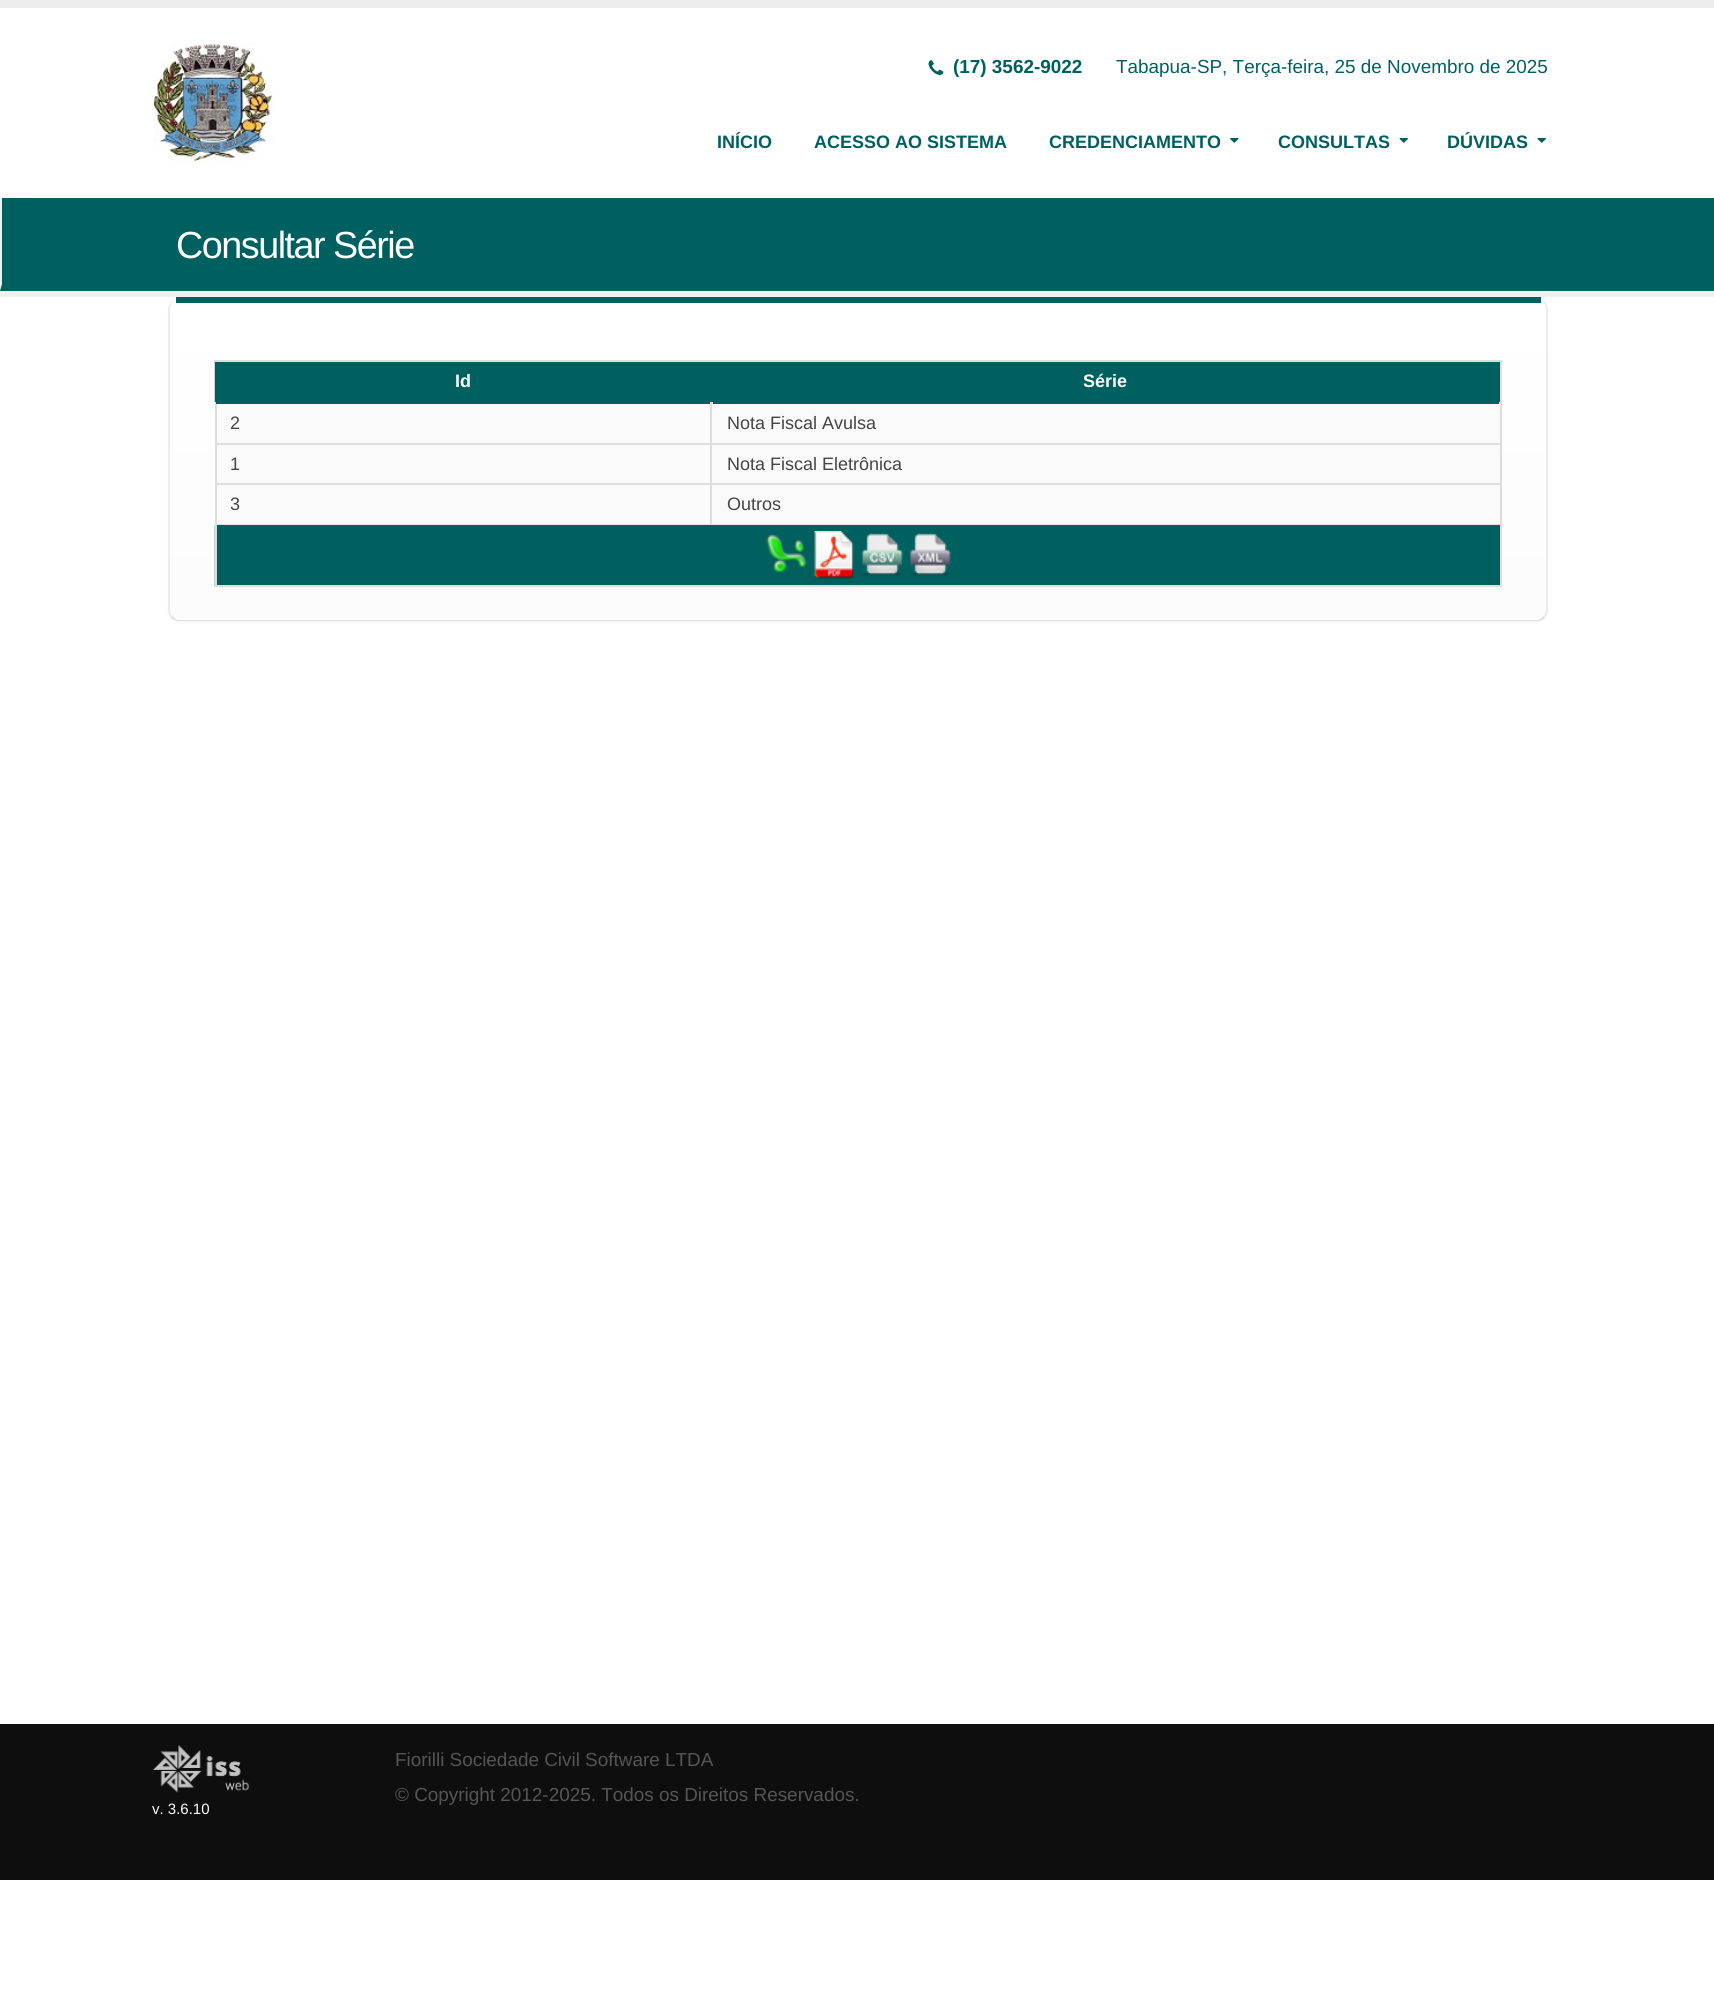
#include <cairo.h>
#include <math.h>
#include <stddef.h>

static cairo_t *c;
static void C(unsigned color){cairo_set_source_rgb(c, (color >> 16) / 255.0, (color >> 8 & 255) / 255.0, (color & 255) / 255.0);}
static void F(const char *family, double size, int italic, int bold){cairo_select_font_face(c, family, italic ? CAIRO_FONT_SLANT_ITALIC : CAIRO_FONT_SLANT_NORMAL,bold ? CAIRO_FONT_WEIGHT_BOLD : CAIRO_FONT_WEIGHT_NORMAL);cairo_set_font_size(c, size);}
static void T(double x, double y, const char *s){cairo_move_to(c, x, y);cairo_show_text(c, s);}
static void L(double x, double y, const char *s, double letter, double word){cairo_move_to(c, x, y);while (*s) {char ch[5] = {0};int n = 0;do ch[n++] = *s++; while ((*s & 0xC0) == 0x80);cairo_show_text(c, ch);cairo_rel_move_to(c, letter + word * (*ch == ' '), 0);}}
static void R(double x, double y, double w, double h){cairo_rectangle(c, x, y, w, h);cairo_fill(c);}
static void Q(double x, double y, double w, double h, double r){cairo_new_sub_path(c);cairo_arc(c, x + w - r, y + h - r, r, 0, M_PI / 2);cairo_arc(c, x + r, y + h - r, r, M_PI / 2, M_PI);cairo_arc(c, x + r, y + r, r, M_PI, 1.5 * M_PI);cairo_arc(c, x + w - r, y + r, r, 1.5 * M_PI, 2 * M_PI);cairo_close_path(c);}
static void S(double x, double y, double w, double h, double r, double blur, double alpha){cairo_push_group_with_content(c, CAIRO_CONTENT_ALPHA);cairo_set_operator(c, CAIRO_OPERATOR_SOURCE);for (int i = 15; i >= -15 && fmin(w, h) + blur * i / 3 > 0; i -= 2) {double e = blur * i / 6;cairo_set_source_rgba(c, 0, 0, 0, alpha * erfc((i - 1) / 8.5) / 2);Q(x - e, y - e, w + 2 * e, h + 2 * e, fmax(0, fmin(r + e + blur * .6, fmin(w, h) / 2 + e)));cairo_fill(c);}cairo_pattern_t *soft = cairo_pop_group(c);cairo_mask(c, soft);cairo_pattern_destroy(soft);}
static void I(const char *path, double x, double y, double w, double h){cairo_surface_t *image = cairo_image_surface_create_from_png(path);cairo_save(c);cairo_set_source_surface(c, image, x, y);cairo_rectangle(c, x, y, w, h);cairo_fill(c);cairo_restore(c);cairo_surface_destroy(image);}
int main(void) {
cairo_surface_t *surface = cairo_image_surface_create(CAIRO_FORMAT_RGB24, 1714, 2012);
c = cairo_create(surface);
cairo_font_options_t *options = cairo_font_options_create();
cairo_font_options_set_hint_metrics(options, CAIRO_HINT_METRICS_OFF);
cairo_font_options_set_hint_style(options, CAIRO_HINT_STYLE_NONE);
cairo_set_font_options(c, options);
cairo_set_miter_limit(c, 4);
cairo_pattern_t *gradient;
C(0xffffff);
cairo_paint(c);
C(0xededed);
R(0,0,1714,8);
I("1.png",153,42,120,120);
I("2.png",928,60,16,15);
F("Liberation Sans",18.9,0,1);
C(0x006060);
T(953,73,"(17) 3562-9022");
F("Liberation Sans",18.9,0,0);
T(1116,73,"Tabapua-SP, Terça-feira, 25 de Novembro de 2025");
F("Liberation Sans",18,0,1);
T(717,148,"INÍCIO");
T(814,148,"ACESSO AO SISTEMA");
T(1049,148,"CREDENCIAMENTO");
I("3.png",1230,138,9,5);
T(1278,148,"CONSULTAS");
I("4.png",1399,138,9,5);
T(1447,148,"DÚVIDAS");
I("4.png",1537,138,9,5);
C(0xf0f0f0);
cairo_new_path(c);
cairo_move_to(c,0,291);
cairo_line_to(c,0,297);
cairo_line_to(c,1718,297);
cairo_line_to(c,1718,201);
cairo_line_to(c,1714,201);
cairo_line_to(c,1714,291);
cairo_close_path(c);
cairo_fill(c);
C(0x006060);
R(0,198,1714,93);
C(0xf0f0f0);
cairo_new_path(c);
cairo_move_to(c,0,291);
cairo_line_to(c,0,198);
cairo_line_to(c,2,198);
cairo_line_to(c,2,284);
cairo_close_path(c);
cairo_fill(c);
F("Liberation Sans",37.75,0,0);
C(0xffffff);
L(176,258,"Consultar Série",-1.5,0);
C(0x000000);
S(168,300,1380,323,12,1,.04);
cairo_save(c);
Q(168,299,1380,322,12);
cairo_clip(c);
gradient = cairo_pattern_create_linear(858,298,858,620);
cairo_pattern_add_color_stop_rgba(gradient,.01,1,1,1,1);
cairo_pattern_add_color_stop_rgba(gradient,.98,0.988,0.988,0.988,1);
cairo_set_source(c,gradient);
cairo_pattern_destroy(gradient);
cairo_new_path(c);
cairo_move_to(c,180,299);
cairo_line_to(c,1536,299);
cairo_curve_to(c,1542.5,299,1548,304.5,1548,311);
cairo_line_to(c,1548,620);
cairo_line_to(c,168,620);
cairo_line_to(c,168,311);
cairo_curve_to(c,168,304.5,173.5,299,180,299);
cairo_close_path(c);
cairo_fill(c);
cairo_restore(c);
C(0xececec);
cairo_new_path(c);
cairo_move_to(c,1543,616);
cairo_curve_to(c,1545,615,1546,612,1546,609);
cairo_line_to(c,1546,310);
cairo_curve_to(c,1546,305,1543,300,1539,298);
cairo_curve_to(c,1545,300,1548,305,1548,310);
cairo_line_to(c,1548,609);
cairo_curve_to(c,1548,612,1547,616,1545,618);
cairo_close_path(c);
cairo_fill(c);
C(0xdfdfdf);
cairo_new_path(c);
cairo_move_to(c,180,621);
cairo_line_to(c,1536,621);
cairo_curve_to(c,1540,621,1542,620,1545,618);
cairo_line_to(c,1543,616);
cairo_curve_to(c,1542,619,1539,620,1536,620);
cairo_line_to(c,180,620);
cairo_curve_to(c,177,620,174,619,173,616);
cairo_line_to(c,171,618);
cairo_curve_to(c,174,620,176,621,180,621);
cairo_close_path(c);
cairo_fill(c);
C(0xececec);
cairo_new_path(c);
cairo_move_to(c,177,298);
cairo_curve_to(c,173,300,170,305,170,310);
cairo_line_to(c,170,609);
cairo_curve_to(c,170,612,171,615,173,616);
cairo_line_to(c,171,618);
cairo_curve_to(c,169,616,168,612,168,609);
cairo_line_to(c,168,310);
cairo_curve_to(c,168,305,171,300,177,298);
cairo_close_path(c);
cairo_fill(c);
C(0x006060);
R(176,297,1365,6);
C(0xbfd7d7);
R(214,360,1,42);
C(0x006060);
R(215,362,1285,40);
F("Liberation Sans",18,0,1);
C(0xffffff);
T(455,387,"Id");
C(0xdddddd);
R(215,360,1287,2);
R(1500,360,2,42);
C(0xffffff);
T(1083,387,"Série");
C(0xdddddd);
R(712,402,790,2);
R(1500,402,2,123);
R(215,524,1287,1);
R(215,402,2,123);
C(0x006060);
R(216,402,494,2);
R(713,402,786,2);
C(0xfafafa);
R(217,404,1283,120);
F("Liberation Sans",18,0,0);
C(0x444444);
T(230,429,"2");
T(727,429,"Nota Fiscal Avulsa");
C(0xdddddd);
R(215,443,1287,2);
C(0x444444);
T(230,470,"1");
T(727,470,"Nota Fiscal Eletrônica");
C(0xdddddd);
R(215,483,1287,2);
C(0x444444);
T(230,510,"3");
C(0xdddddd);
R(710,402,2,123);
C(0x444444);
T(727,510,"Outros");
C(0x006060);
R(217,525,1283,60);
I("5.png",214,525,1,62);
C(0xdddddd);
R(1500,525,2,62);
R(215,585,1287,2);
R(215,525,2,62);
I("6.png",765,534,42,40);
I("7.png",814,531,40,48);
I("8.png",861,533,43,43);
I("9.png",909,533,43,43);
C(0x0e0e0e);
R(0,1724,1714,156);
F("Liberation Sans",18.9,0,0);
C(0x555555);
T(395,1766,"Fiorilli Sociedade Civil Software LTDA");
T(395,1801,"© Copyright 2012-2025. Todos os Direitos Reservados.");
I("10.png",153,1744,96,49);
F("Liberation Sans",15,0,0);
C(0xffffff);
T(152,1814,"v. 3.6.10");
cairo_surface_write_to_png(surface, "o.png");
cairo_font_options_destroy(options);
cairo_destroy(c);
cairo_surface_destroy(surface);
return 0;
}
